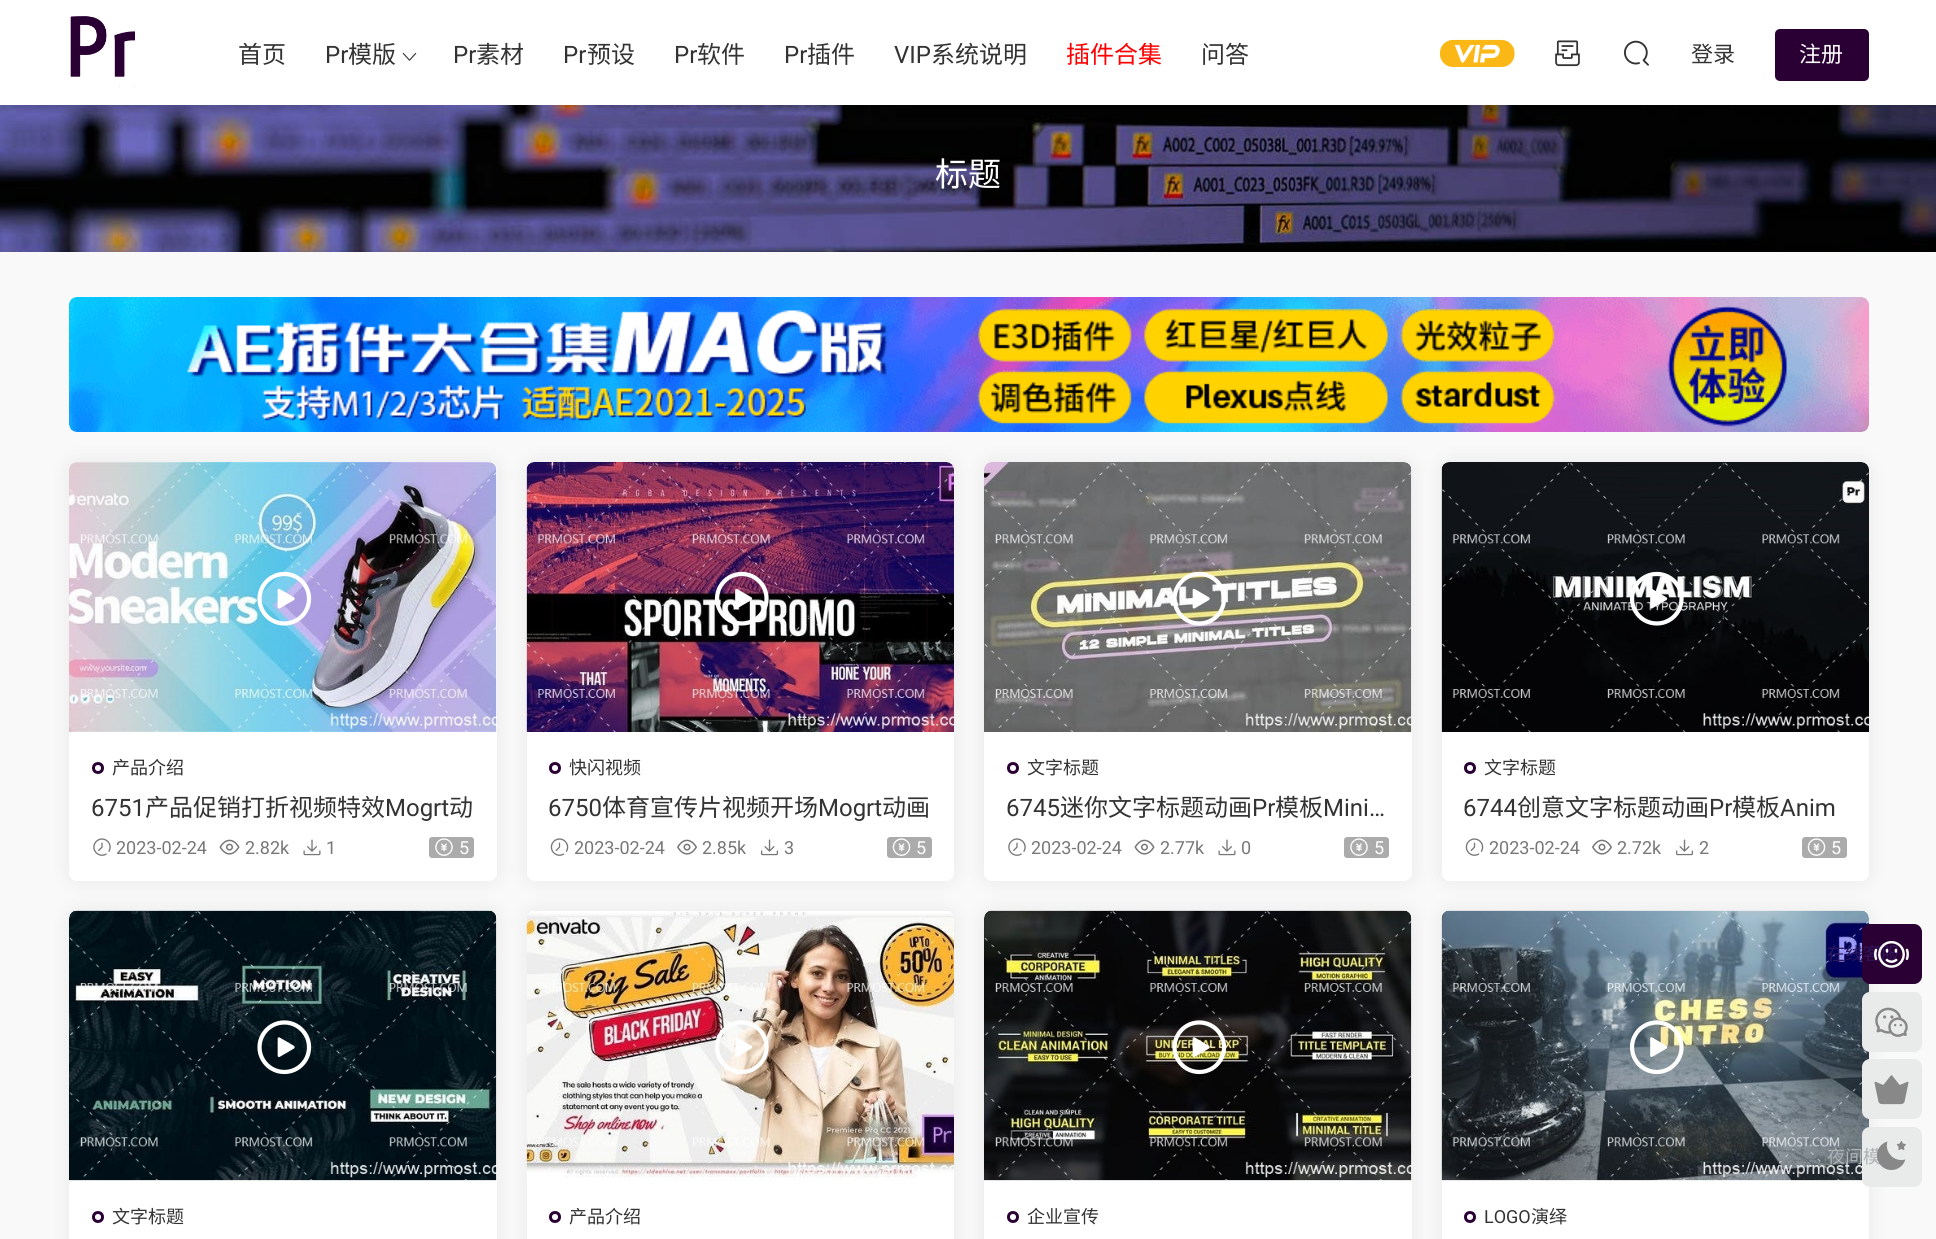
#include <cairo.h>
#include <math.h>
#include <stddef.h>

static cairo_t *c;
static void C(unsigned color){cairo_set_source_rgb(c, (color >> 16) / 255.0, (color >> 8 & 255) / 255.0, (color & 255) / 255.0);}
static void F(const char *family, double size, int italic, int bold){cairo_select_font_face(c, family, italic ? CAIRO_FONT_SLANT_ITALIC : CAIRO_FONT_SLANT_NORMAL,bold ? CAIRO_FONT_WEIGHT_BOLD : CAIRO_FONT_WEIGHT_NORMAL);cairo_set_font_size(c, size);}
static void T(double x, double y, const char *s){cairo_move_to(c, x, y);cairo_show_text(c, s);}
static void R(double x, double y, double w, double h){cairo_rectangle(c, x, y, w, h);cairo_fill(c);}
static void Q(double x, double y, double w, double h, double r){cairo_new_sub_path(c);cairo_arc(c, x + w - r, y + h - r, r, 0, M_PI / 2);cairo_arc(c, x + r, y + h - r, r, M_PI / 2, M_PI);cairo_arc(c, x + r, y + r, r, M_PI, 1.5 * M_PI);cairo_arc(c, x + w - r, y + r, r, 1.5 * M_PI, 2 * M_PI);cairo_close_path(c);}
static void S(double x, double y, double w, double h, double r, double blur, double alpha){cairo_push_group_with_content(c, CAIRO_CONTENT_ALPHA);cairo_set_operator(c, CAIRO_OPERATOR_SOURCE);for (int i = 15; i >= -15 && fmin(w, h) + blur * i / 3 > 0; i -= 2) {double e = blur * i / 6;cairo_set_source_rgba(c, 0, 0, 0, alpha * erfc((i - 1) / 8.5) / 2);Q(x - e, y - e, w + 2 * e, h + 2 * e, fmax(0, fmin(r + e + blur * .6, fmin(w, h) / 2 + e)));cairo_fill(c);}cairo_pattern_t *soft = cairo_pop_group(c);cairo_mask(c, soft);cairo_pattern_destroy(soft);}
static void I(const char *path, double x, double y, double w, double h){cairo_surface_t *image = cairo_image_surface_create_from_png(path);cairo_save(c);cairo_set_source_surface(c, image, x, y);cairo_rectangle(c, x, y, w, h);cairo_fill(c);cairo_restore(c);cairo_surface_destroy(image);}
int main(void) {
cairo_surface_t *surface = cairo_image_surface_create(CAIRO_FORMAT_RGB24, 1936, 1239);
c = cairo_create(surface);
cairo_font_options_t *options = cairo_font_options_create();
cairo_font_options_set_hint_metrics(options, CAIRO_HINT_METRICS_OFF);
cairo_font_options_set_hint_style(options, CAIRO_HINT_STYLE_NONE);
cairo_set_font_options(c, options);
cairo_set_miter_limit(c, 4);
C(0xf9f9f9);
cairo_paint(c);
I("6.png",0,105,1936,147);
C(0x000000);
S(0,2,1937,105,0,4,.1);
C(0xffffff);
R(0,0,1936,105);
I("1.png",70,16,65,71);
F("Noto Sans CJK SC",24,0,0);
C(0x333333);
T(238,63,"首页");
F("Roboto",24,0,0);
T(325,63,"Pr");
F("Noto Sans CJK SC",24,0,0);
T(348,63,"模版");
I("2.png",402,52,15,9);
F("Roboto",24,0,0);
T(453,63,"Pr");
F("Noto Sans CJK SC",24,0,0);
T(476,63,"素材");
F("Roboto",24,0,0);
T(563,63,"Pr");
F("Noto Sans CJK SC",24,0,0);
T(587,63,"预设");
F("Roboto",24,0,0);
T(674,63,"Pr");
F("Noto Sans CJK SC",24,0,0);
T(697,63,"软件");
F("Roboto",24,0,0);
T(784,63,"Pr");
F("Noto Sans CJK SC",24,0,0);
T(807,63,"插件");
F("Roboto",24,0,0);
T(894,63,"VIP");
F("Noto Sans CJK SC",24,0,0);
T(931,63,"系统说明");
C(0xff0000);
T(1066,63,"插件合集");
C(0x333333);
T(1201,63,"问答");
I("3.png",1440,39,75,28);
I("4.png",1555,40,25,27);
I("5.png",1624,40,25,26);
F("Noto Sans CJK SC",22,0,0);
T(1691,62,"登录");
C(0x2a0034);
Q(1775,29,94,52,5);
cairo_fill(c);
C(0xffffff);
T(1799,62,"注册");
F("Noto Sans CJK SC",33,0,0);
T(935,186,"标题");
I("7.png",69,297,1800,135);
C(0x000000);
S(69,462,428,419,8,11,.07);
C(0xffffff);
Q(69,462,428,419,8);
cairo_fill(c);
cairo_new_path(c);
cairo_move_to(c,77,462);
cairo_line_to(c,489,462);
cairo_curve_to(c,493.5,462,497,465.5,497,470);
cairo_line_to(c,497,732);
cairo_line_to(c,69,732);
cairo_line_to(c,69,470);
cairo_curve_to(c,69,465.5,72.5,462,77,462);
cairo_close_path(c);
cairo_fill(c);
I("8.png",69,462,428,270);
I("9.png",257,571,55,55);
cairo_arc(c,98,768,4.5,0,2 * M_PI);
C(0x2a0034);
cairo_set_line_width(c,3);
cairo_stroke(c);
F("Noto Sans CJK SC",18,0,0);
C(0x333333);
T(112,774,"产品介绍");
F("Roboto",24,0,0);
T(91,816,"6751");
F("Noto Sans CJK SC",24,0,0);
T(145,816,"产品促销打折视频特效");
F("Roboto",24,0,0);
T(385,816,"Mogrt");
F("Noto Sans CJK SC",24,0,0);
T(449,816,"动");
I("10.png",93,838,18,18);
F("Roboto",18,0,0);
C(0x777777);
T(116,854,"2023-02-24");
I("11.png",219,839,21,16);
T(245,854,"2.82k");
I("12.png",303,839,18,17);
T(326,854,"1");
C(0xababab);
cairo_new_path(c);
cairo_move_to(c,432,837);
cairo_line_to(c,455,837);
cairo_line_to(c,455,858);
cairo_line_to(c,432,858);
cairo_curve_to(c,430.5,858,429,856.5,429,855);
cairo_line_to(c,429,840);
cairo_curve_to(c,429,838.5,430.5,837,432,837);
cairo_close_path(c);
cairo_fill(c);
I("13.png",435,838,18,18);
cairo_new_path(c);
cairo_move_to(c,455,837);
cairo_line_to(c,471,837);
cairo_curve_to(c,472.5,837,474,838.5,474,840);
cairo_line_to(c,474,855);
cairo_curve_to(c,474,856.5,472.5,858,471,858);
cairo_line_to(c,455,858);
cairo_close_path(c);
cairo_fill(c);
C(0xffffff);
T(459,854,"5");
C(0x000000);
S(527,462,427,419,8,11,.07);
C(0xffffff);
Q(527,462,427,419,8);
cairo_fill(c);
cairo_new_path(c);
cairo_move_to(c,535,462);
cairo_line_to(c,946,462);
cairo_curve_to(c,950.5,462,954,465.5,954,470);
cairo_line_to(c,954,732);
cairo_line_to(c,527,732);
cairo_line_to(c,527,470);
cairo_curve_to(c,527,465.5,530.5,462,535,462);
cairo_close_path(c);
cairo_fill(c);
I("14.png",526,462,428,270);
I("15.png",714,571,55,55);
cairo_arc(c,555,768,4.5,0,2 * M_PI);
C(0x2a0034);
cairo_stroke(c);
F("Noto Sans CJK SC",18,0,0);
C(0x333333);
T(569,774,"快闪视频");
F("Roboto",24,0,0);
T(548,816,"6750");
F("Noto Sans CJK SC",24,0,0);
T(602,816,"体育宣传片视频开场");
F("Roboto",24,0,0);
T(818,816,"Mogrt");
F("Noto Sans CJK SC",24,0,0);
T(882,816,"动画");
I("16.png",550,838,19,18);
F("Roboto",18,0,0);
C(0x777777);
T(574,854,"2023-02-24");
I("17.png",677,839,20,16);
T(702,854,"2.85k");
I("18.png",760,839,19,17);
T(784,854,"3");
C(0xababab);
cairo_new_path(c);
cairo_move_to(c,890,837);
cairo_line_to(c,912,837);
cairo_line_to(c,912,858);
cairo_line_to(c,890,858);
cairo_curve_to(c,888.5,858,887,856.5,887,855);
cairo_line_to(c,887,840);
cairo_curve_to(c,887,838.5,888.5,837,890,837);
cairo_close_path(c);
cairo_fill(c);
I("19.png",892,838,19,18);
cairo_new_path(c);
cairo_move_to(c,912,837);
cairo_line_to(c,929,837);
cairo_curve_to(c,930.5,837,932,838.5,932,840);
cairo_line_to(c,932,855);
cairo_curve_to(c,932,856.5,930.5,858,929,858);
cairo_line_to(c,912,858);
cairo_close_path(c);
cairo_fill(c);
C(0xffffff);
T(916,854,"5");
C(0x000000);
S(984,462,428,419,8,11,.07);
C(0xffffff);
Q(984,462,428,419,8);
cairo_fill(c);
cairo_new_path(c);
cairo_move_to(c,992,462);
cairo_line_to(c,1404,462);
cairo_curve_to(c,1408.5,462,1412,465.5,1412,470);
cairo_line_to(c,1412,732);
cairo_line_to(c,984,732);
cairo_line_to(c,984,470);
cairo_curve_to(c,984,465.5,987.5,462,992,462);
cairo_close_path(c);
cairo_fill(c);
I("20.png",984,462,428,270);
I("21.png",1173,571,53,55);
cairo_arc(c,1013,768,4.5,0,2 * M_PI);
C(0x2a0034);
cairo_stroke(c);
F("Noto Sans CJK SC",18,0,0);
C(0x333333);
T(1027,774,"文字标题");
F("Roboto",24,0,0);
T(1006,816,"6745");
F("Noto Sans CJK SC",24,0,0);
T(1060,816,"迷你文字标题动画");
F("Roboto",24,0,0);
T(1252,816,"Pr");
F("Noto Sans CJK SC",24,0,0);
T(1275,816,"模板");
F("Roboto",24,0,0);
T(1323,816,"Mini…");
I("10.png",1008,838,18,18);
F("Roboto",18,0,0);
C(0x777777);
T(1031,854,"2023-02-24");
I("11.png",1134,839,21,16);
T(1160,854,"2.77k");
I("12.png",1218,839,18,17);
T(1241,854,"0");
C(0xababab);
cairo_new_path(c);
cairo_move_to(c,1347,837);
cairo_line_to(c,1370,837);
cairo_line_to(c,1370,858);
cairo_line_to(c,1347,858);
cairo_curve_to(c,1345.5,858,1344,856.5,1344,855);
cairo_line_to(c,1344,840);
cairo_curve_to(c,1344,838.5,1345.5,837,1347,837);
cairo_close_path(c);
cairo_fill(c);
I("13.png",1350,838,18,18);
cairo_new_path(c);
cairo_move_to(c,1370,837);
cairo_line_to(c,1386,837);
cairo_curve_to(c,1387.5,837,1389,838.5,1389,840);
cairo_line_to(c,1389,855);
cairo_curve_to(c,1389,856.5,1387.5,858,1386,858);
cairo_line_to(c,1370,858);
cairo_close_path(c);
cairo_fill(c);
C(0xffffff);
T(1374,854,"5");
C(0x000000);
S(1442,462,427,419,8,11,.07);
C(0xffffff);
Q(1442,462,427,419,8);
cairo_fill(c);
cairo_new_path(c);
cairo_move_to(c,1450,462);
cairo_line_to(c,1861,462);
cairo_curve_to(c,1865.5,462,1869,465.5,1869,470);
cairo_line_to(c,1869,732);
cairo_line_to(c,1442,732);
cairo_line_to(c,1442,470);
cairo_curve_to(c,1442,465.5,1445.5,462,1450,462);
cairo_close_path(c);
cairo_fill(c);
I("22.png",1441,462,428,270);
I("23.png",1629,571,55,55);
cairo_arc(c,1470,768,4.5,0,2 * M_PI);
C(0x2a0034);
cairo_stroke(c);
F("Noto Sans CJK SC",18,0,0);
C(0x333333);
T(1484,774,"文字标题");
F("Roboto",24,0,0);
T(1463,816,"6744");
F("Noto Sans CJK SC",24,0,0);
T(1517,816,"创意文字标题动画");
F("Roboto",24,0,0);
T(1709,816,"Pr");
F("Noto Sans CJK SC",24,0,0);
T(1732,816,"模板");
F("Roboto",24,0,0);
T(1780,816,"Anim");
I("16.png",1465,838,19,18);
F("Roboto",18,0,0);
C(0x777777);
T(1489,854,"2023-02-24");
I("17.png",1592,839,20,16);
T(1617,854,"2.72k");
I("18.png",1675,839,19,17);
T(1699,854,"2");
C(0xababab);
cairo_new_path(c);
cairo_move_to(c,1805,837);
cairo_line_to(c,1827,837);
cairo_line_to(c,1827,858);
cairo_line_to(c,1805,858);
cairo_curve_to(c,1803.5,858,1802,856.5,1802,855);
cairo_line_to(c,1802,840);
cairo_curve_to(c,1802,838.5,1803.5,837,1805,837);
cairo_close_path(c);
cairo_fill(c);
I("19.png",1807,838,19,18);
cairo_new_path(c);
cairo_move_to(c,1827,837);
cairo_line_to(c,1844,837);
cairo_curve_to(c,1845.5,837,1847,838.5,1847,840);
cairo_line_to(c,1847,855);
cairo_curve_to(c,1847,856.5,1845.5,858,1844,858);
cairo_line_to(c,1827,858);
cairo_close_path(c);
cairo_fill(c);
C(0xffffff);
T(1831,854,"5");
C(0x000000);
S(69,911,428,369,8,11,.07);
C(0xffffff);
Q(69,911,428,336,8);
cairo_fill(c);
cairo_new_path(c);
cairo_move_to(c,77,911);
cairo_line_to(c,489,911);
cairo_curve_to(c,493.5,911,497,914.5,497,919);
cairo_line_to(c,497,1181);
cairo_line_to(c,69,1181);
cairo_line_to(c,69,919);
cairo_curve_to(c,69,914.5,72.5,911,77,911);
cairo_close_path(c);
cairo_fill(c);
I("24.png",69,910,428,271);
I("25.png",257,1020,55,55);
cairo_arc(c,98,1217,4.5,0,2 * M_PI);
C(0x2a0034);
cairo_stroke(c);
F("Noto Sans CJK SC",18,0,0);
C(0x333333);
T(112,1223,"文字标题");
C(0x000000);
S(527,911,427,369,8,11,.07);
C(0xffffff);
Q(527,911,427,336,8);
cairo_fill(c);
cairo_new_path(c);
cairo_move_to(c,535,911);
cairo_line_to(c,946,911);
cairo_curve_to(c,950.5,911,954,914.5,954,919);
cairo_line_to(c,954,1181);
cairo_line_to(c,527,1181);
cairo_line_to(c,527,919);
cairo_curve_to(c,527,914.5,530.5,911,535,911);
cairo_close_path(c);
cairo_fill(c);
I("26.png",526,911,428,269);
I("27.png",715,1020,54,54);
cairo_arc(c,555,1217,4.5,0,2 * M_PI);
C(0x2a0034);
cairo_stroke(c);
C(0x333333);
T(569,1223,"产品介绍");
C(0x000000);
S(984,911,428,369,8,11,.07);
C(0xffffff);
Q(984,911,428,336,8);
cairo_fill(c);
cairo_new_path(c);
cairo_move_to(c,992,911);
cairo_line_to(c,1404,911);
cairo_curve_to(c,1408.5,911,1412,914.5,1412,919);
cairo_line_to(c,1412,1181);
cairo_line_to(c,984,1181);
cairo_line_to(c,984,919);
cairo_curve_to(c,984,914.5,987.5,911,992,911);
cairo_close_path(c);
cairo_fill(c);
I("28.png",984,910,428,271);
I("29.png",1172,1020,55,55);
cairo_arc(c,1013,1217,4.5,0,2 * M_PI);
C(0x2a0034);
cairo_stroke(c);
C(0x333333);
T(1027,1223,"企业宣传");
C(0x000000);
S(1442,911,427,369,8,11,.07);
C(0xffffff);
Q(1442,911,427,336,8);
cairo_fill(c);
cairo_new_path(c);
cairo_move_to(c,1450,911);
cairo_line_to(c,1861,911);
cairo_curve_to(c,1865.5,911,1869,914.5,1869,919);
cairo_line_to(c,1869,1181);
cairo_line_to(c,1442,1181);
cairo_line_to(c,1442,919);
cairo_curve_to(c,1442,914.5,1445.5,911,1450,911);
cairo_close_path(c);
cairo_fill(c);
I("30.png",1441,910,428,271);
I("31.png",1629,1020,55,55);
cairo_arc(c,1470,1217,4.5,0,2 * M_PI);
C(0x2a0034);
cairo_stroke(c);
F("Roboto",18,0,0);
C(0x333333);
T(1484,1223,"LOGO");
F("Noto Sans CJK SC",18,0,0);
T(1531,1223,"演绎");
C(0x2a0034);
Q(1862,924,60,60,8);
cairo_fill(c);
C(0x2e165b);
T(1827,960,"在线客服");
I("32.png",1874,941,35,27);
C(0xe9eaea);
Q(1862,992,60,60,8);
cairo_fill(c);
I("33.png",1875,1007,33,30);
Q(1862,1059,60,60,8);
cairo_fill(c);
I("34.png",1874,1075,35,30);
Q(1862,1127,60,60,8);
cairo_fill(c);
C(0xadb2b5);
T(1827,1163,"夜间模");
I("35.png",1876,1141,30,29);
cairo_surface_write_to_png(surface, "o.png");
cairo_font_options_destroy(options);
cairo_destroy(c);
cairo_surface_destroy(surface);
return 0;
}
